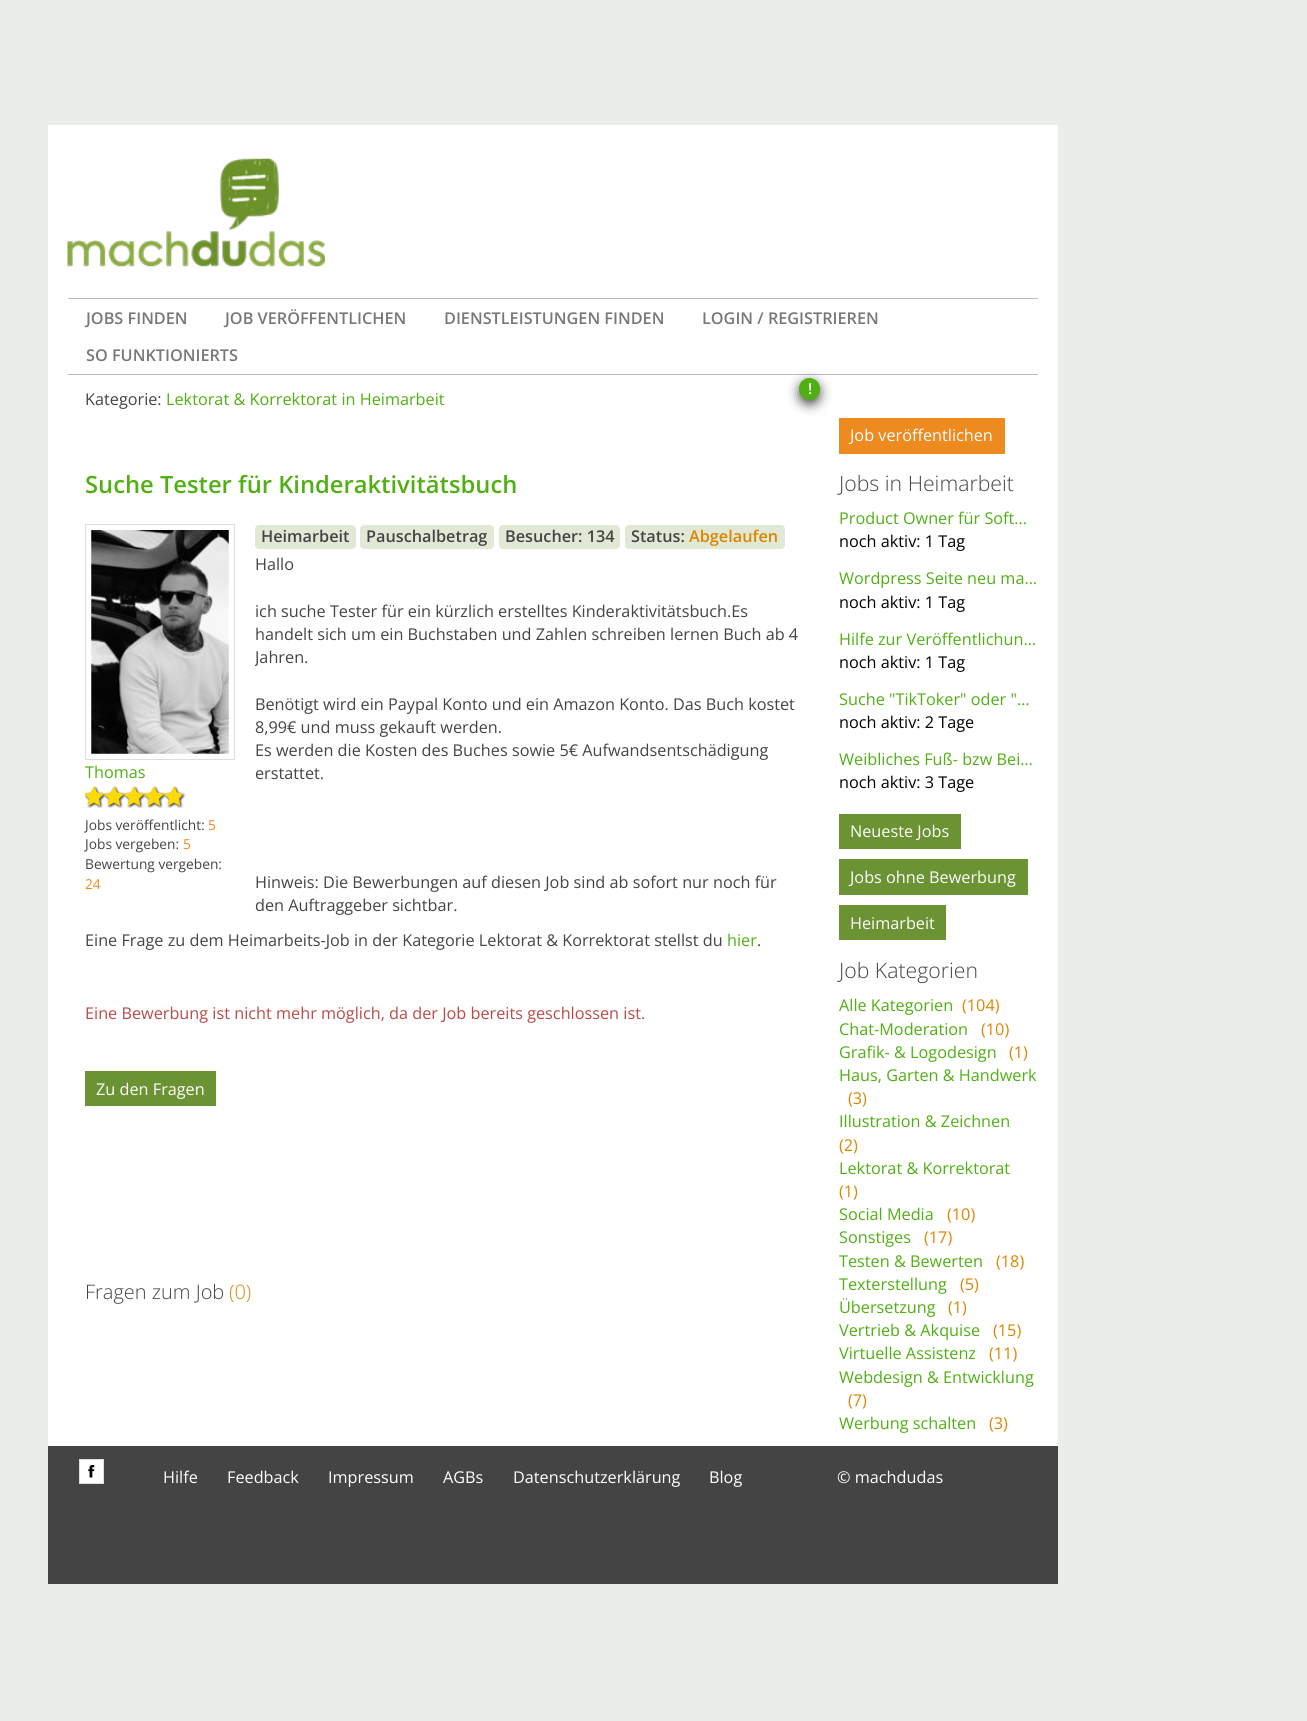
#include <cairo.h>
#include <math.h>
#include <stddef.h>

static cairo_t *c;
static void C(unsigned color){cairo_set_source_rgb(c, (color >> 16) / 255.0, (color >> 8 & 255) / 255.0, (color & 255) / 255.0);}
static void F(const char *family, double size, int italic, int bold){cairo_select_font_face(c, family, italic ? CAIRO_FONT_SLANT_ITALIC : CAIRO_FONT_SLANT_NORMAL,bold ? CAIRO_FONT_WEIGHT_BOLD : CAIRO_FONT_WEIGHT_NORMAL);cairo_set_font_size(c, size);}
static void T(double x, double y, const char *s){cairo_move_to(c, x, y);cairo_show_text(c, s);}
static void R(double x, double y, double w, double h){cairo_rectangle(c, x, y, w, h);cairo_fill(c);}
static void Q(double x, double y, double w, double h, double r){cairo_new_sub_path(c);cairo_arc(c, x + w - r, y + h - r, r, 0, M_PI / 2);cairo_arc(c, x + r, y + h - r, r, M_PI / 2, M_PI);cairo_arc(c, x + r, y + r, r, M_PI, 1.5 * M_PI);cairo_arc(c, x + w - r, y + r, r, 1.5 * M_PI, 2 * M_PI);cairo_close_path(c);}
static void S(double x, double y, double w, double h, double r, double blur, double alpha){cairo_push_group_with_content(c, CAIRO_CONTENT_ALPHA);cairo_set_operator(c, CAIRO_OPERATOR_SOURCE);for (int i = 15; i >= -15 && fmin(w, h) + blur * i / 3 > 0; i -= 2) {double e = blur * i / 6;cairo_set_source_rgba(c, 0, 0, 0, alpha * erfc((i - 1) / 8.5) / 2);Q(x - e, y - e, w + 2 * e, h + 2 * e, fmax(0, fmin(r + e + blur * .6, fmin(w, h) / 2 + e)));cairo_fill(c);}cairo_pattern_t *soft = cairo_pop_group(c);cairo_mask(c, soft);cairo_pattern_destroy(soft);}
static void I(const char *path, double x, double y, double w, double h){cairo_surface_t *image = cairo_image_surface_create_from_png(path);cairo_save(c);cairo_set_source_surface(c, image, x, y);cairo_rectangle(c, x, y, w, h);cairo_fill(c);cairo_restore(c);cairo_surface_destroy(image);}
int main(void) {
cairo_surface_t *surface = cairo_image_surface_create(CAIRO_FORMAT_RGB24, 1307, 1721);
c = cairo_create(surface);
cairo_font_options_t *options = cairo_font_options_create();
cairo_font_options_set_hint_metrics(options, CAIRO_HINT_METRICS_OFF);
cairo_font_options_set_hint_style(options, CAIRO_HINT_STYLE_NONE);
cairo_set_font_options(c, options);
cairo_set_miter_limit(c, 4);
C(0xebede9);
cairo_paint(c);
C(0xffffff);
R(48,125,1010,1321);
I("1.png",67,158,258,109);
C(0xbabcbd);
R(68,298,970,1);
R(68,374,970,1);
F("Open Sans SemiBold",16.25,0,0);
C(0x777777);
T(86,324,"JOBS FINDEN");
T(225,324,"JOB VERÖFFENTLICHEN");
T(444,324,"DIENSTLEISTUNGEN FINDEN");
T(702,324,"LOGIN / REGISTRIEREN");
T(86,361,"SO FUNKTIONIERTS");
C(0x000000);
S(800,383,19,20,9.5,6,.75);
C(0x50af13);
Q(799,378,21,22,10.5);
cairo_fill(c);
F("Open Sans SemiBold",15,0,0);
C(0xffffff);
T(808,394,"!");
F("Open Sans",16.25,0,0);
C(0x444444);
T(85,405,"Kategorie:");
C(0x50af13);
T(166,405,"Lektorat & Korrektorat in Heimarbeit");
F("Open Sans SemiBold",23.75,0,0);
T(85,493,"Suche Tester für Kinderaktivitätsbuch");
C(0xe1e9d6);
Q(255,525,101,24,4);
cairo_fill(c);
F("Open Sans SemiBold",16.25,0,0);
C(0x444444);
T(261,542,"Heimarbeit");
C(0xe1e9d6);
Q(360,525,134,24,4);
cairo_fill(c);
C(0x444444);
T(366,542,"Pauschalbetrag");
C(0xe1e9d6);
Q(499,525,121,24,4);
cairo_fill(c);
C(0x444444);
T(505,542,"Besucher: 134");
C(0xe1e9d6);
Q(625,525,160,24,4);
cairo_fill(c);
C(0x444444);
T(631,542,"Status:");
C(0xdd8500);
T(689,542,"Abgelaufen");
F("Open Sans",16.25,0,0);
C(0x444444);
T(255,570,"Hallo");
T(255,617,"ich suche Tester für ein kürzlich erstelltes Kinderaktivitätsbuch.Es");
T(255,640,"handelt sich um ein Buchstaben und Zahlen schreiben lernen Buch ab 4");
cairo_save(c);
cairo_rectangle(c,255,553,550,256);
cairo_clip(c);
T(255,663,"Jahren.");
cairo_restore(c);
T(255,710,"Benötigt wird ein Paypal Konto und ein Amazon Konto. Das Buch kostet");
T(255,733,"8,99€ und muss gekauft werden.");
T(255,756,"Es werden die Kosten des Buches sowie 5€ Aufwandsentschädigung");
T(255,779,"erstattet.");
T(255,888,"Hinweis: Die Bewerbungen auf diesen Job sind ab sofort nur noch für");
T(255,911,"den Auftraggeber sichtbar.");
T(85,946,"Eine Frage zu dem Heimarbeits-Job in der Kategorie Lektorat & Korrektorat stellst du");
C(0x50af13);
T(727,946,"hier");
C(0x444444);
T(757,946,".");
C(0xb94a48);
T(85,1019,"Eine Bewerbung ist nicht mehr möglich, da der Job bereits geschlossen ist.");
cairo_rectangle(c,85.5,524.5,149,235);
C(0xdddddd);
cairo_set_line_width(c,1);
cairo_stroke(c);
I("2.png",91,530,138,224);
C(0x50af13);
T(85,778,"Thomas");
I("3.png",85,786,101,22);
I("4.png",85,786,99,22);
F("Open Sans",13.75,0,0);
C(0x444444);
T(85,830,"Jobs veröffentlicht:");
C(0xed8a20);
T(208,830,"5");
C(0x444444);
T(85,849,"Jobs vergeben:");
C(0xed8a20);
T(183,849,"5");
C(0x444444);
T(85,869,"Bewertung vergeben:");
C(0xed8a20);
T(85,889,"24");
C(0x6b9333);
R(85,1071,131,35);
F("Open Sans",16.25,0,0);
C(0xffffff);
T(96,1095,"Zu den Fragen");
F("Open Sans Light",20,0,0);
C(0x444444);
T(85,1299,"Fragen zum Job");
C(0xdd8500);
T(229,1299,"(0)");
C(0xed8a20);
R(839,418,166,36);
F("Open Sans",16.25,0,0);
C(0xffffff);
T(850,441,"Job veröffentlichen");
F("Open Sans Light",21.25,0,0);
C(0x444444);
T(839,491,"Jobs in Heimarbeit");
F("Open Sans",16.25,0,0);
C(0x50af13);
T(839,524,"Product Owner für Soft…");
C(0x000000);
T(839,547,"noch aktiv: 1 Tag");
C(0x50af13);
T(839,584,"Wordpress Seite neu ma…");
C(0x000000);
T(839,608,"noch aktiv: 1 Tag");
C(0x50af13);
T(839,645,"Hilfe zur Veröffentlichun…");
C(0x000000);
T(839,668,"noch aktiv: 1 Tag");
C(0x50af13);
T(839,705,"Suche \"TikToker\" oder \"…");
C(0x000000);
T(839,728,"noch aktiv: 2 Tage");
C(0x50af13);
T(839,765,"Weibliches Fuß- bzw Bei…");
C(0x000000);
T(839,788,"noch aktiv: 3 Tage");
C(0x6b9333);
R(839,814,122,35);
C(0xffffff);
T(850,837,"Neueste Jobs");
C(0x6b9333);
R(839,859,189,36);
C(0xffffff);
T(850,883,"Jobs ohne Bewerbung");
C(0x6b9333);
R(839,905,107,35);
C(0xffffff);
T(850,929,"Heimarbeit");
F("Open Sans Light",21.25,0,0);
C(0x444444);
T(839,978,"Job Kategorien");
F("Open Sans",16.25,0,0);
C(0x50af13);
T(839,1011,"Alle Kategorien");
C(0xdd8500);
T(962,1011,"(104)");
C(0x50af13);
T(839,1035,"Chat-Moderation");
C(0xdd8500);
T(981,1035,"(10)");
C(0x50af13);
T(839,1058,"Grafik- & Logodesign");
C(0xdd8500);
T(1009,1058,"(1)");
C(0x50af13);
T(839,1081,"Haus, Garten & Handwerk");
C(0xdd8500);
T(848,1104,"(3)");
C(0x50af13);
T(839,1127,"Illustration & Zeichnen");
C(0xdd8500);
T(839,1151,"(2)");
C(0x50af13);
T(839,1174,"Lektorat & Korrektorat");
C(0xdd8500);
T(839,1197,"(1)");
C(0x50af13);
T(839,1220,"Social Media");
C(0xdd8500);
T(947,1220,"(10)");
C(0x50af13);
T(839,1243,"Sonstiges");
C(0xdd8500);
T(924,1243,"(17)");
C(0x50af13);
T(839,1267,"Testen & Bewerten");
C(0xdd8500);
T(996,1267,"(18)");
C(0x50af13);
T(839,1290,"Texterstellung");
C(0xdd8500);
T(960,1290,"(5)");
C(0x50af13);
T(839,1313,"Übersetzung");
C(0xdd8500);
T(948,1313,"(1)");
C(0x50af13);
T(839,1336,"Vertrieb & Akquise");
C(0xdd8500);
T(993,1336,"(15)");
C(0x50af13);
T(839,1359,"Virtuelle Assistenz");
C(0xdd8500);
T(989,1359,"(11)");
C(0x50af13);
T(839,1383,"Webdesign & Entwicklung");
C(0xdd8500);
T(848,1406,"(7)");
C(0x50af13);
T(839,1429,"Werbung schalten");
C(0xdd8500);
T(989,1429,"(3)");
C(0x444444);
R(48,1446,1010,138);
C(0xffffff);
cairo_rectangle(c,79.5,1459.5,24,24);
cairo_fill_preserve(c);
C(0xdddddd);
cairo_stroke(c);
I("5.png",88,1465,7,13);
C(0xffffff);
T(163,1483,"Hilfe");
T(227,1483,"Feedback");
T(328,1483,"Impressum");
T(443,1483,"AGBs");
T(513,1483,"Datenschutzerklärung");
T(709,1483,"Blog");
T(837,1483,"© machdudas");
cairo_surface_write_to_png(surface, "o.png");
cairo_font_options_destroy(options);
cairo_destroy(c);
cairo_surface_destroy(surface);
return 0;
}
